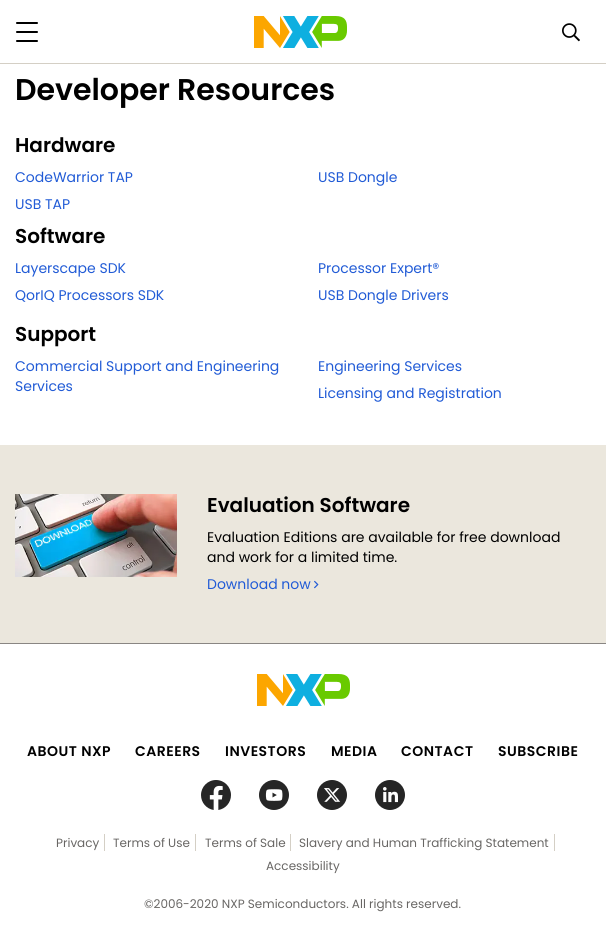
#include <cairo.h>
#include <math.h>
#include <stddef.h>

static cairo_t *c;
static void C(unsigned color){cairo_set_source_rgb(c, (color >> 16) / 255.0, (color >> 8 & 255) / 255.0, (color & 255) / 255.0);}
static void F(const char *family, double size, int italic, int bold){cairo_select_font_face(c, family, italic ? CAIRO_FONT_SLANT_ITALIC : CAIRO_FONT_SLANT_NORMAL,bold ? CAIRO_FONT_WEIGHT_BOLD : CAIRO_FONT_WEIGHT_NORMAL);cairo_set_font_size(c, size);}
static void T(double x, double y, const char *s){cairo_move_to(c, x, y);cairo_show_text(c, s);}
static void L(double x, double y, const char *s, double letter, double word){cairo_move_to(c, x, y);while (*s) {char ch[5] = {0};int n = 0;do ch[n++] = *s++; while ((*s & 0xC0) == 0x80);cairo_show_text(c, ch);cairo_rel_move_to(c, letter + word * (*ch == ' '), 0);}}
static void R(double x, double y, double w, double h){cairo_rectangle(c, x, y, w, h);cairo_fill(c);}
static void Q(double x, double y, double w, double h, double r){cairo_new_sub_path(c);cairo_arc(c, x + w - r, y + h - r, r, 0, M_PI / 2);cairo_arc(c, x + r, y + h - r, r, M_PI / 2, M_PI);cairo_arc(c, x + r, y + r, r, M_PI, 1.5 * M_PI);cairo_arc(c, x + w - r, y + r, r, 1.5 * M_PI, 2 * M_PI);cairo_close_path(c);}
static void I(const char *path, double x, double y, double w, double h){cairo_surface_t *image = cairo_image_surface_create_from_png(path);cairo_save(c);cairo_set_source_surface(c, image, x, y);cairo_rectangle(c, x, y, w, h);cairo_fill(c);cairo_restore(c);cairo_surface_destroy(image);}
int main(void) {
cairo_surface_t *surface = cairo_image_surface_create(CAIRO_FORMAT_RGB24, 606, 942);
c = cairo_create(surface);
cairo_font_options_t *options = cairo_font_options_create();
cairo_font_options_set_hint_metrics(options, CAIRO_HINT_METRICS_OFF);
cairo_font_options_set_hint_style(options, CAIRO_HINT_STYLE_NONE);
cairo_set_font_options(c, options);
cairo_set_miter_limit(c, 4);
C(0xffffff);
cairo_paint(c);
C(0xd4cfc5);
R(0,63,606,1);
C(0x000000);
Q(16,22,22,2,1);
cairo_fill(c);
Q(16,31,22,2,1);
cairo_fill(c);
Q(16,40,22,2,1);
cairo_fill(c);
I("1.png",254,16,93,32);
I("2.png",562,23,18,19);
F("Poppins SemiBold",30,0,0);
T(15,100,"Developer Resources");
F("Poppins SemiBold",20,0,0);
T(15,152,"Hardware");
F("Poppins",14,0,0);
C(0x215bd6);
T(15,182,"CodeWarrior TAP");
T(318,182,"USB Dongle");
T(15,209,"USB TAP");
F("Poppins SemiBold",20,0,0);
C(0x000000);
T(15,243,"Software");
F("Poppins",14,0,0);
C(0x215bd6);
T(15,273,"Layerscape SDK");
T(318,273,"Processor Expert®");
T(15,300,"QorIQ Processors SDK");
T(318,300,"USB Dongle Drivers");
F("Poppins SemiBold",20,0,0);
C(0x000000);
T(15,341,"Support");
F("Poppins",14,0,0);
C(0x215bd6);
T(15,371,"Commercial Support and Engineering");
T(15,391,"Services");
T(318,371,"Engineering Services");
T(318,398,"Licensing and Registration");
C(0xebe7dd);
R(0,445,606,198);
I("3.png",15,494,162,83);
F("Poppins SemiBold",20,0,0);
C(0x000000);
T(207,512,"Evaluation Software");
F("Poppins",14,0,0);
T(207,542,"Evaluation Editions are available for free download");
T(207,562,"and work for a limited time.");
C(0x215bd6);
T(207,589,"Download now");
I("4.png",314,580,5,9);
C(0x898683);
R(0,643,606,1);
I("1.png",257,674,93,32);
F("Poppins SemiBold",14,0,0);
C(0x000000);
L(27,756,"ABOUT NXP",.5,0);
L(135,756,"CAREERS",.5,0);
L(225,756,"INVESTORS",.5,0);
L(331,756,"MEDIA",.5,0);
L(401,756,"CONTACT",.5,0);
L(498,756,"SUBSCRIBE",.5,0);
I("5.png",201,780,30,30);
I("6.png",259,780,30,30);
I("7.png",317,780,30,30);
I("8.png",375,780,30,30);
C(0xd4cfc5);
R(104,834,1,17);
F("Poppins",12,0,0);
C(0x686664);
T(56,847,"Privacy");
C(0xd4cfc5);
R(195,834,1,17);
C(0x686664);
T(113,847,"Terms of Use");
C(0xd4cfc5);
R(290,834,1,17);
C(0x686664);
T(205,847,"Terms of Sale");
C(0xd4cfc5);
R(554,834,1,17);
C(0x686664);
T(299,847,"Slavery and Human Trafficking Statement");
T(266,870,"Accessibility");
T(144,908,"©2006-2020 NXP Semiconductors. All rights reserved.");
cairo_surface_write_to_png(surface, "o.png");
cairo_font_options_destroy(options);
cairo_destroy(c);
cairo_surface_destroy(surface);
return 0;
}
